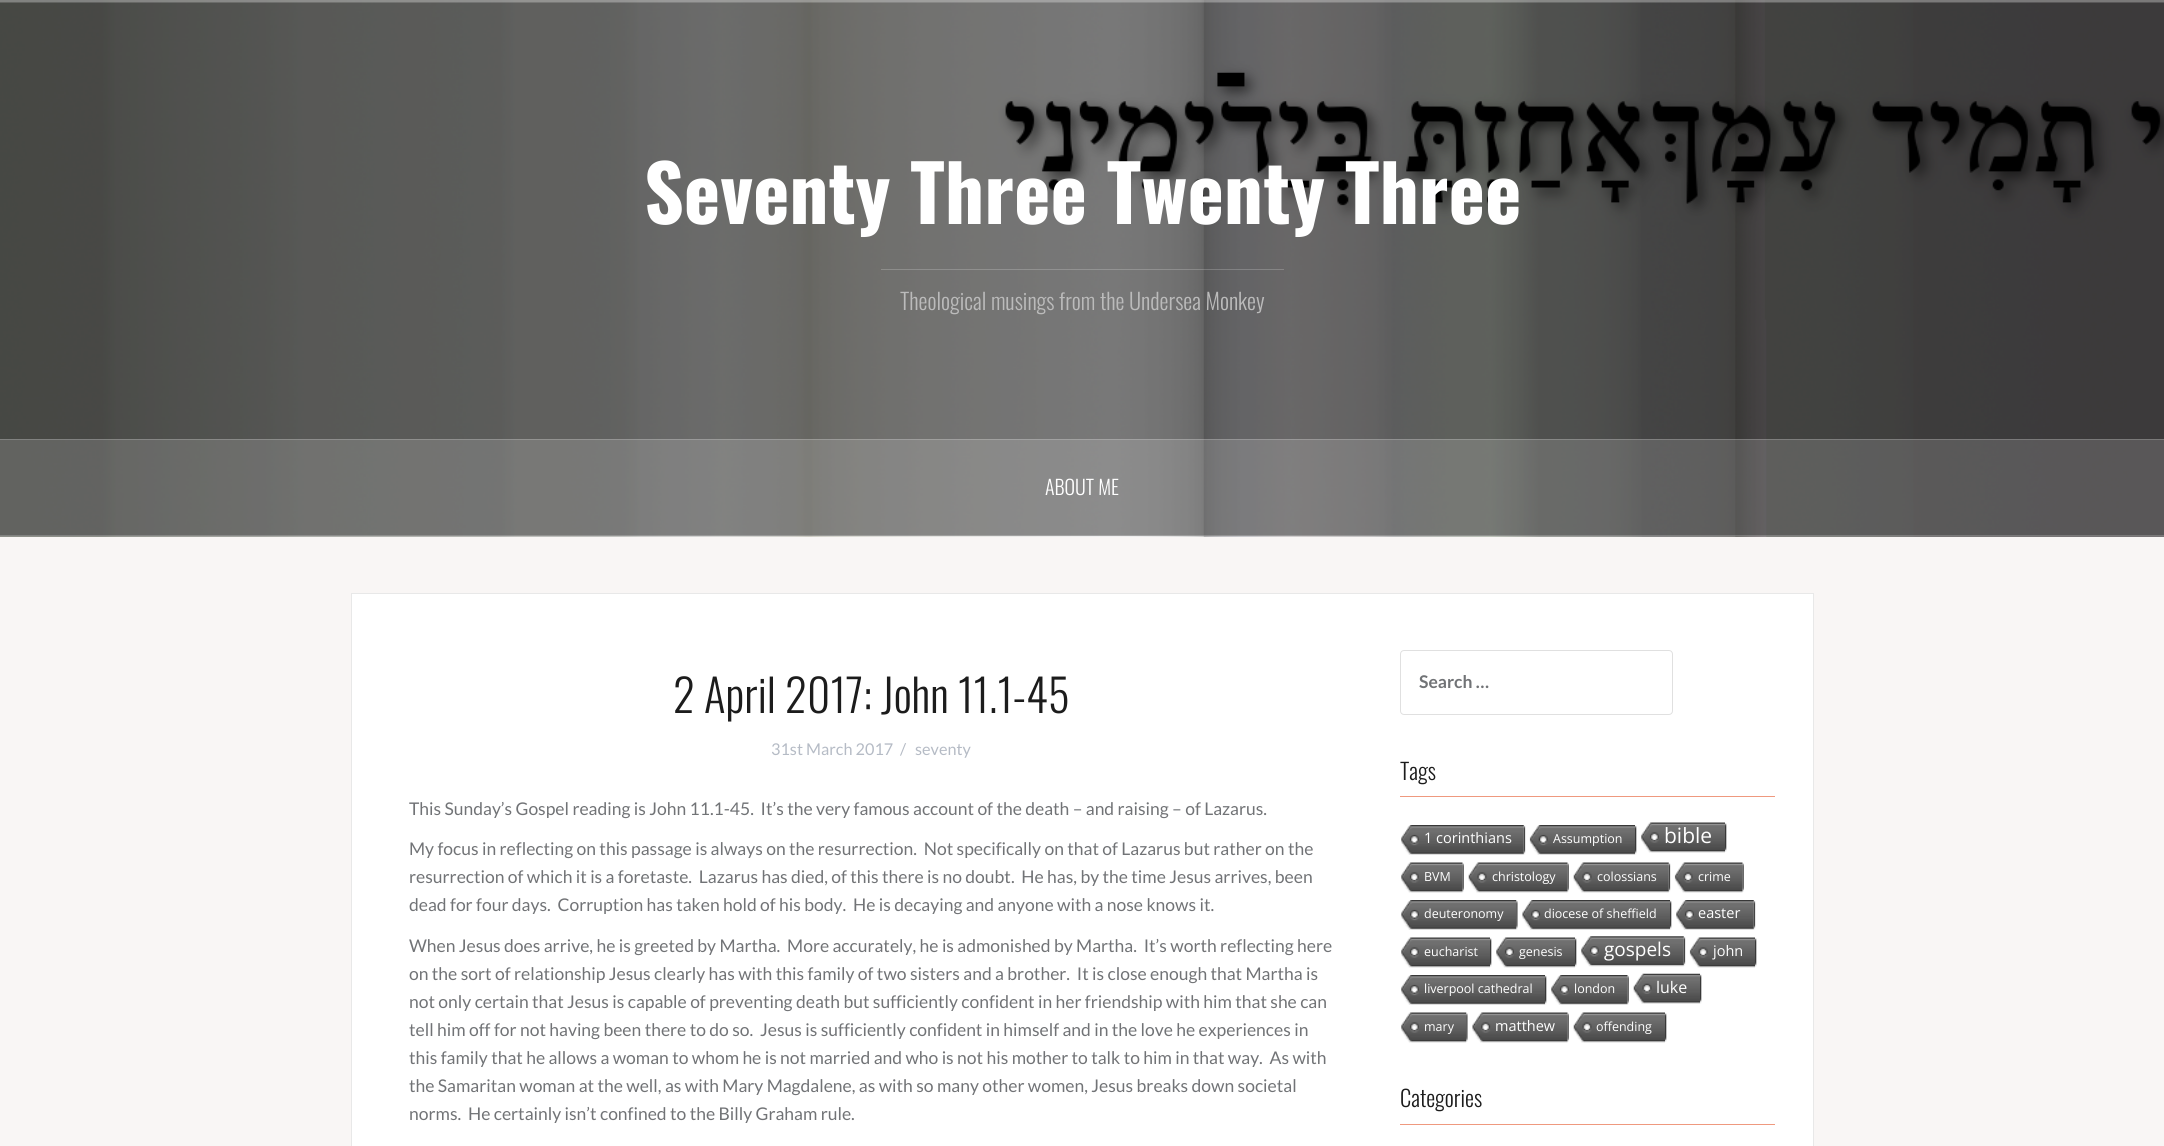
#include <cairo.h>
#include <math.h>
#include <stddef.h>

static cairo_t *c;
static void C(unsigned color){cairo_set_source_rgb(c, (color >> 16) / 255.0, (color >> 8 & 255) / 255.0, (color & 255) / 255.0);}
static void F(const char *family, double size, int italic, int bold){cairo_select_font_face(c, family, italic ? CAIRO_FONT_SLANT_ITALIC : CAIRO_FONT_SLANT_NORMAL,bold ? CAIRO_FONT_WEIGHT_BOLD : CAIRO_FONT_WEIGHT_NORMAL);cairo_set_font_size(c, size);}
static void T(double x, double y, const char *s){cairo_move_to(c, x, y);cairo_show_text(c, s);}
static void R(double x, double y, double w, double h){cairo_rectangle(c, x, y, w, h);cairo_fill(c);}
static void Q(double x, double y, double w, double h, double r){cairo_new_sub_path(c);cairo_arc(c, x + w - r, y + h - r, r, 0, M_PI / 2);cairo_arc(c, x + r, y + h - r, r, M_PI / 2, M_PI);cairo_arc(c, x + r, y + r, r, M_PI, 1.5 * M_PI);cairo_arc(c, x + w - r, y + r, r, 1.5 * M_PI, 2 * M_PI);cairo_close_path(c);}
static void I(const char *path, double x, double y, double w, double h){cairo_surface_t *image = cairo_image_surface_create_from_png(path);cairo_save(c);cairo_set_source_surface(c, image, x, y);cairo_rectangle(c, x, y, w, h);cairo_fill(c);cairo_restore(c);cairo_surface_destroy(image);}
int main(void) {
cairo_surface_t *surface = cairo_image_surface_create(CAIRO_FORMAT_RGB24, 2164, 1146);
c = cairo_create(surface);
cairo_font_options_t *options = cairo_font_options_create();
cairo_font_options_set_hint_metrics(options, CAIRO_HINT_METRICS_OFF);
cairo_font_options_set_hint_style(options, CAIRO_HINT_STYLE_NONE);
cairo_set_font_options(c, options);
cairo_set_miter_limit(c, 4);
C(0xf9f6f5);
cairo_paint(c);
I("1.png",0,0,2164,537);
cairo_set_source_rgba(c,1,1,1,0.15);
R(0,0,2164,3);
cairo_set_source_rgba(c,1,1,1,0.2);
R(0,0,2164,1);
R(0,1,2164,1);
F("Oswald",77.5,0,1);
C(0xffffff);
T(644,224,"Seventy Three Twenty Three");
cairo_set_source_rgba(c,1,1,1,0.2);
R(881,269,403,1);
F("Oswald Light",22.5,0,0);
C(0xbbbbbb);
T(900,310,"Theological musings from the Undersea Monkey");
cairo_set_source_rgba(c,1,1,1,0.15);
R(0,439,2164,97);
cairo_set_source_rgba(c,1,1,1,0.2);
R(0,439,2164,1);
R(0,535,2164,1);
F("Oswald Light",20,0,0);
C(0xffffff);
T(1045,495,"ABOUT ME");
cairo_rectangle(c,351.5,593.5,1462,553);
cairo_fill_preserve(c);
C(0xe8e8e8);
cairo_set_line_width(c,1);
cairo_stroke(c);
F("Oswald Light",45,0,0);
C(0x1c1c1c);
T(673,713,"2 April 2017: John 11.1-45");
F("Lato",16.25,0,0);
C(0xb5bbc5);
T(771,755,"31st March 2017");
T(900,755,"/");
T(915,755,"seventy");
F("Lato",17.5,0,0);
C(0x717376);
T(409,815,"This Sunday’s Gospel reading is John 11.1-45.  It’s the very famous account of the death – and raising – of Lazarus.");
T(409,855,"My focus in reflecting on this passage is always on the resurrection.  Not specifically on that of Lazarus but rather on the");
T(409,883,"resurrection of which it is a foretaste.  Lazarus has died, of this there is no doubt.  He has, by the time Jesus arrives, been");
T(409,911,"dead for four days.  Corruption has taken hold of his body.  He is decaying and anyone with a nose knows it.");
T(409,952,"When Jesus does arrive, he is greeted by Martha.  More accurately, he is admonished by Martha.  It’s worth reflecting here");
T(409,980,"on the sort of relationship Jesus clearly has with this family of two sisters and a brother.  It is close enough that Martha is");
T(409,1008,"not only certain that Jesus is capable of preventing death but sufficiently confident in her friendship with him that she can");
T(409,1036,"tell him off for not having been there to do so.  Jesus is sufficiently confident in himself and in the love he experiences in");
T(409,1064,"this family that he allows a woman to whom he is not married and who is not his mother to talk to him in that way.  As with");
T(409,1092,"the Samaritan woman at the well, as with Mary Magdalene, as with so many other women, Jesus breaks down societal");
T(409,1120,"norms.  He certainly isn’t confined to the Billy Graham rule.");
Q(1400.5,650.5,272,64,3.5);
C(0xe0e0e0);
cairo_stroke(c);
F("Lato",17.5,0,1);
C(0x717376);
T(1419,688,"Search …");
C(0xef997f);
R(1400,796,375,1);
F("Oswald Light",22.5,0,0);
C(0x1c1c1c);
T(1400,780,"Tags");
I("2.png",1401,825,123,30);
F("Open Sans",14.5,0,0);
C(0xffffff);
T(1424,843,"1 corinthians");
I("3.png",1523,825,3,30);
I("4.png",1529,825,106,30);
F("Open Sans",12.5,0,0);
T(1553,843,"Assumption");
I("5.png",1635,825,2,30);
I("6.png",1641,822,84,31);
F("Open Sans",21,0,0);
T(1664,843,"bible");
I("7.png",1725,823,2,29);
I("8.png",1401,862,62,31);
F("Open Sans",12.5,0,0);
T(1424,881,"BVM");
I("9.png",1462,863,2,29);
I("10.png",1468,862,100,31);
T(1492,881,"christology");
I("9.png",1567,863,2,29);
I("11.png",1573,862,96,31);
T(1597,881,"colossians");
I("12.png",1668,863,3,29);
I("13.png",1674,862,69,31);
T(1698,881,"crime");
I("9.png",1742,863,2,29);
I("14.png",1401,900,116,30);
T(1424,918,"deuteronomy");
I("15.png",1516,900,2,30);
I("16.png",1522,900,148,30);
T(1544,918,"diocese of sheffield");
I("5.png",1670,900,2,30);
I("17.png",1676,900,78,30);
F("Open Sans",14.5,0,0);
T(1698,918,"easter");
I("3.png",1753,900,3,30);
I("18.png",1401,937,89,31);
F("Open Sans",12.5,0,0);
T(1424,956,"eucharist");
I("7.png",1490,938,2,29);
I("19.png",1496,937,79,31);
T(1519,956,"genesis");
I("7.png",1575,938,2,29);
I("20.png",1581,936,103,31);
F("Open Sans",19,0,0);
T(1604,956,"gospels");
I("21.png",1683,936,3,30);
I("22.png",1689,937,66,31);
F("Open Sans",14.5,0,0);
T(1713,956,"john");
I("7.png",1755,938,2,29);
I("23.png",1401,975,144,30);
F("Open Sans",12.5,0,0);
T(1424,993,"liverpool cathedral");
I("24.png",1545,975,2,30);
I("25.png",1551,975,77,30);
T(1574,993,"london");
I("26.png",1627,975,2,30);
I("27.png",1633,973,67,31);
F("Open Sans",16,0,0);
T(1656,993,"luke");
I("28.png",1700,974,2,30);
I("29.png",1401,1012,66,31);
F("Open Sans",12.5,0,0);
T(1424,1031,"mary");
I("30.png",1466,1013,2,29);
I("31.png",1472,1012,96,31);
F("Open Sans",14.5,0,0);
T(1495,1031,"matthew");
I("9.png",1567,1013,2,29);
I("32.png",1573,1012,92,31);
F("Open Sans",12.5,0,0);
T(1596,1031,"offending");
I("7.png",1665,1013,2,29);
C(0xef997f);
R(1400,1124,375,1);
F("Oswald Light",22.5,0,0);
C(0x1c1c1c);
T(1400,1107,"Categories");
cairo_surface_write_to_png(surface, "o.png");
cairo_font_options_destroy(options);
cairo_destroy(c);
cairo_surface_destroy(surface);
return 0;
}
